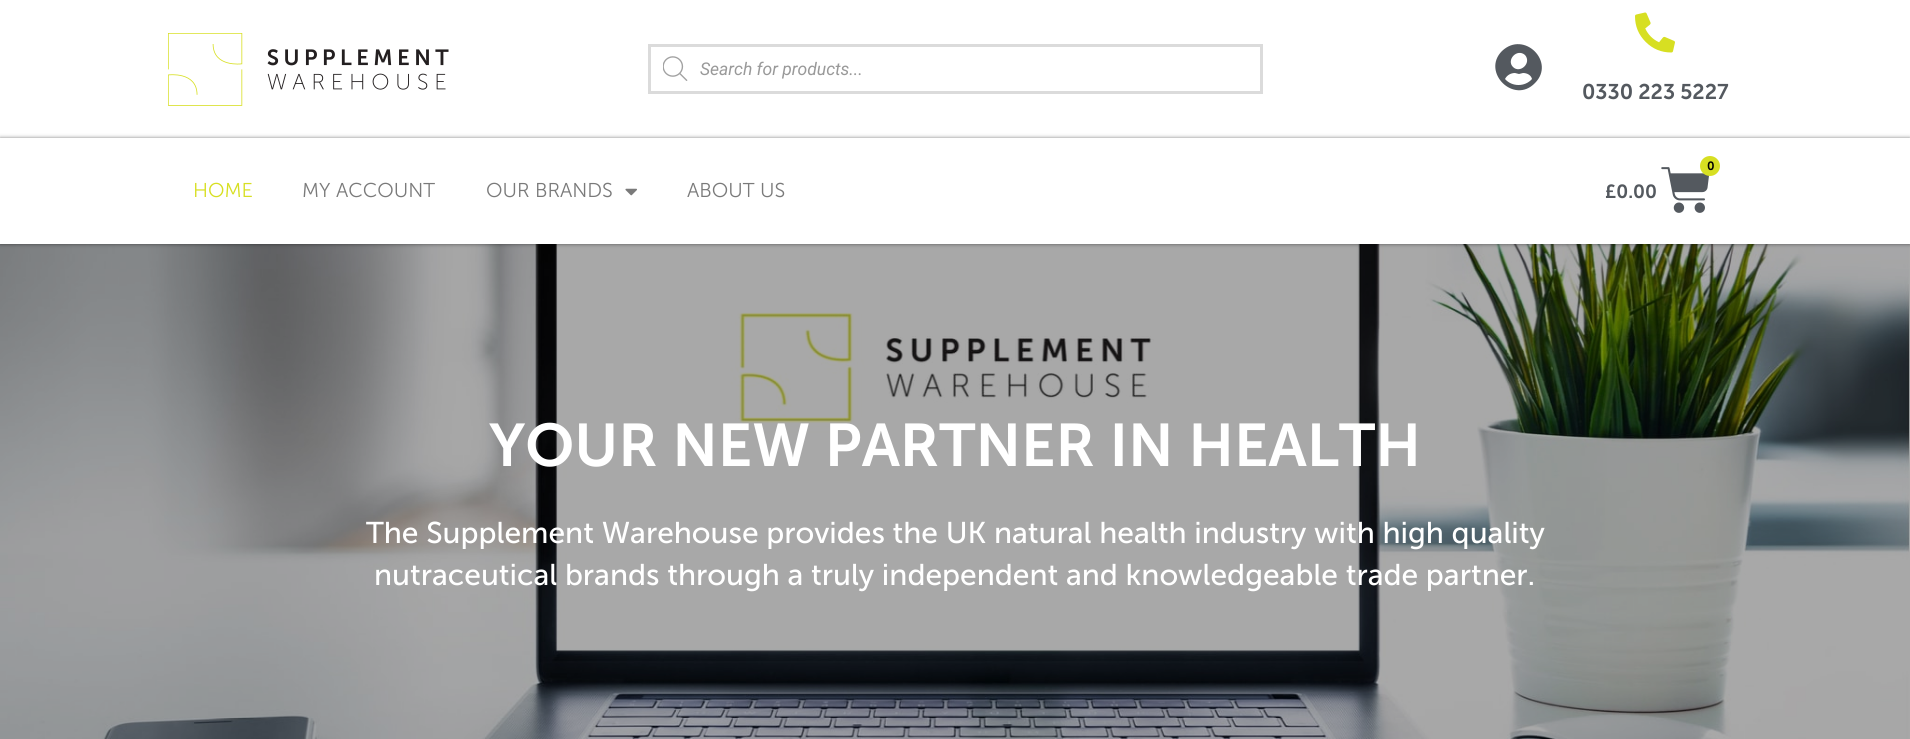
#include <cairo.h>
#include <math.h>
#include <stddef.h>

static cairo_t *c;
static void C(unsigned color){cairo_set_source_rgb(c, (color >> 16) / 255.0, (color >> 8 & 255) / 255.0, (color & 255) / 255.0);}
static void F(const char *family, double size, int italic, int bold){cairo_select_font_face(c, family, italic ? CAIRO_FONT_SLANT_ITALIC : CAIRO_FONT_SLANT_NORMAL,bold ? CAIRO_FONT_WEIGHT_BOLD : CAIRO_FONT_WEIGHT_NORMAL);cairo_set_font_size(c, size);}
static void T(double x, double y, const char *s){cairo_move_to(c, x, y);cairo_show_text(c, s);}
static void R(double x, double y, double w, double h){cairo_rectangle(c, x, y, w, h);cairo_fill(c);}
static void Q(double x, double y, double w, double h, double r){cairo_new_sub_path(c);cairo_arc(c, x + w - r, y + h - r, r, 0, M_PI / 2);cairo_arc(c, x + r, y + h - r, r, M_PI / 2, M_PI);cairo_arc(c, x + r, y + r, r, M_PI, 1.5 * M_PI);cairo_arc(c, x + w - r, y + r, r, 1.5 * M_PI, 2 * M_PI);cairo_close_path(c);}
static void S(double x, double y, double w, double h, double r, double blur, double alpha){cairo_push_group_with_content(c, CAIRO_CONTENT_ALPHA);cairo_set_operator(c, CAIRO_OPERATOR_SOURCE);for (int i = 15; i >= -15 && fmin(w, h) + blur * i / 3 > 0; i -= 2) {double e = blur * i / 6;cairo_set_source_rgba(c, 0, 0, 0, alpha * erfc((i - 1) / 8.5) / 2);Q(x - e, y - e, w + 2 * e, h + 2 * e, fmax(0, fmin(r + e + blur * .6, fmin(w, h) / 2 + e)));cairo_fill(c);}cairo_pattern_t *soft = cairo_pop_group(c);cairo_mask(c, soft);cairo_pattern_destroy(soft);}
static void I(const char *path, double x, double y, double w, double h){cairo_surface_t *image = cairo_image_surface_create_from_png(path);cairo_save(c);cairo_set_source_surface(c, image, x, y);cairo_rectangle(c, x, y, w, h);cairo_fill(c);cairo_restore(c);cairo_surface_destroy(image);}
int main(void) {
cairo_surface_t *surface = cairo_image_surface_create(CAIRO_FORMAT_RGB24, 1910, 739);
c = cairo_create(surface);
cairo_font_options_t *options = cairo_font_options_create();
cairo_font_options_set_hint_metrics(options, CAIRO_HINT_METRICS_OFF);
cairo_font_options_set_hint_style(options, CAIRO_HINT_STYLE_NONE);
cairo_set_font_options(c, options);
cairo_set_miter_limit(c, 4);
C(0xffffff);
cairo_paint(c);
I("1.png",168,33,281,73);
cairo_rectangle(c,649.5,45.5,612,47);
C(0xdbdbdb);
cairo_set_line_width(c,3);
cairo_stroke(c);
I("2.png",663,56,25,25);
F("Roboto",17.5,1,0);
C(0x999999);
T(700,75,"Search for products...");
C(0x54595f);
cairo_new_path(c);
cairo_move_to(c,1502,51);
cairo_curve_to(c,1524,30,1556,62,1535,83);
cairo_curve_to(c,1514,105,1481,72,1502,51);
cairo_close_path(c);
cairo_move_to(c,1525,55);
cairo_curve_to(c,1517,48,1506,60,1513,67);
cairo_curve_to(c,1520,74,1532,63,1525,55);
cairo_close_path(c);
cairo_move_to(c,1505,79);
cairo_curve_to(c,1512,87,1525,87,1532,79);
cairo_curve_to(c,1531,75,1527,73,1523,73);
cairo_line_to(c,1519,74);
cairo_line_to(c,1515,73);
cairo_curve_to(c,1511,73,1507,75,1505,79);
cairo_close_path(c);
cairo_fill(c);
I("3.png",1635,12,40,41);
F("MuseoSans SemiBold",21.25,0,0);
T(1582,99,"0330 223 5227");
I("6.png",0,244,1910,495);
C(0x000000);
S(0,138,1910,106,0,2,.5);
C(0xffffff);
R(0,138,1910,106);
F("MuseoSans Light",20,0,0);
C(0xd7df22);
T(193,197,"HOME");
C(0x7a7a7a);
T(302,197,"MY ACCOUNT");
T(486,197,"OUR BRANDS");
I("4.png",625,188,12,8);
T(687,197,"ABOUT US");
I("5.png",1661,167,49,46);
C(0xd7df22);
cairo_arc(c,1710,166,10,0,2 * M_PI);
cairo_fill(c);
F("MuseoSans SemiBold",12,0,0);
C(0x000000);
T(1707,170,"0");
F("MuseoSans SemiBold",19,0,0);
C(0x54595f);
T(1605,198,"£0.00");
F("MuseoSans SemiBold",60,0,0);
C(0xffffff);
T(489,466,"YOUR NEW PARTNER IN HEALTH");
F("MuseoSans",30,0,0);
T(366,543,"The Supplement Warehouse provides the UK natural health industry with high quality");
T(374,585,"nutraceutical brands through a truly independent and knowledgeable trade partner.");
cairo_surface_write_to_png(surface, "o.png");
cairo_font_options_destroy(options);
cairo_destroy(c);
cairo_surface_destroy(surface);
return 0;
}
